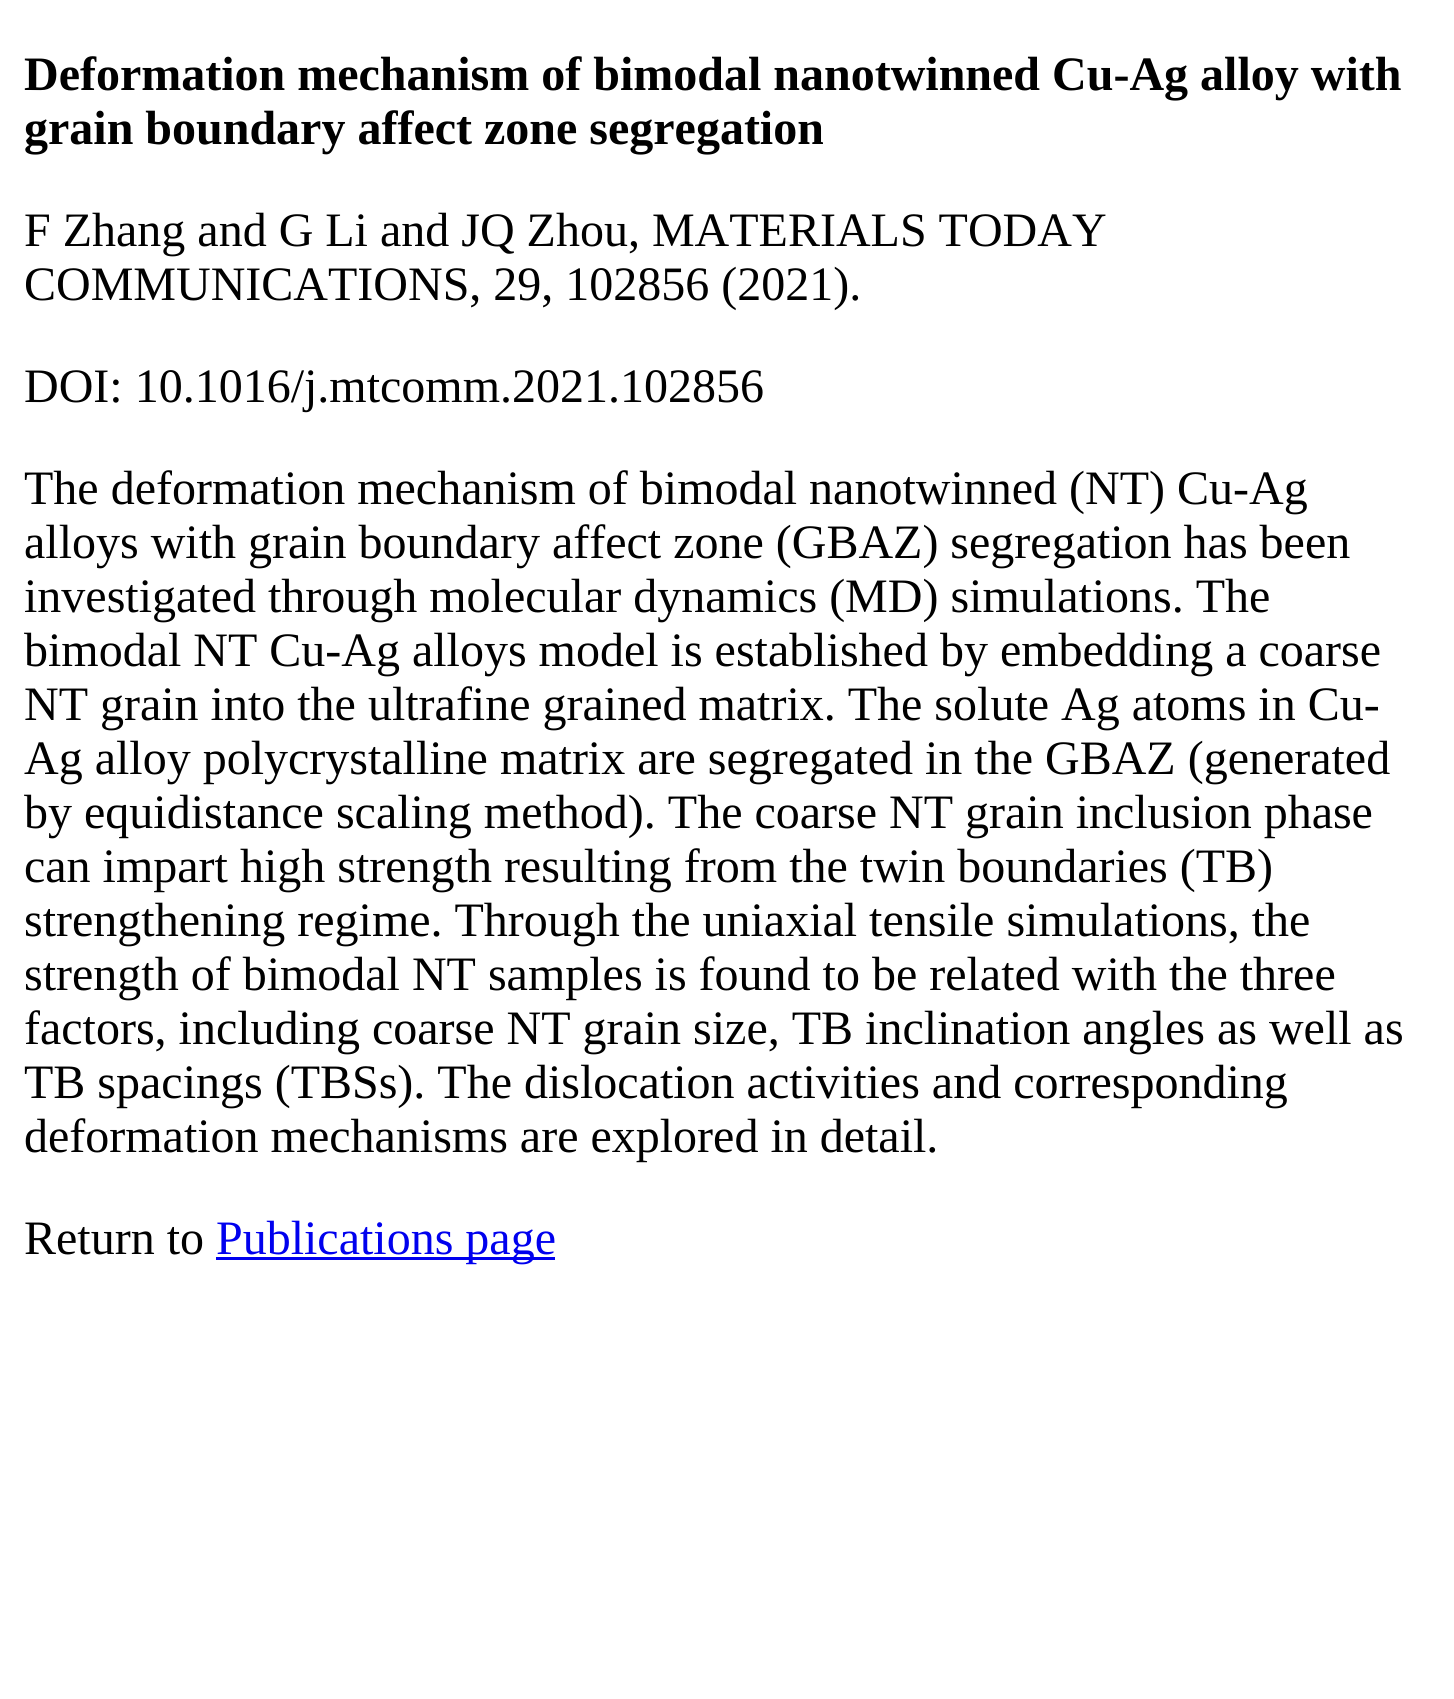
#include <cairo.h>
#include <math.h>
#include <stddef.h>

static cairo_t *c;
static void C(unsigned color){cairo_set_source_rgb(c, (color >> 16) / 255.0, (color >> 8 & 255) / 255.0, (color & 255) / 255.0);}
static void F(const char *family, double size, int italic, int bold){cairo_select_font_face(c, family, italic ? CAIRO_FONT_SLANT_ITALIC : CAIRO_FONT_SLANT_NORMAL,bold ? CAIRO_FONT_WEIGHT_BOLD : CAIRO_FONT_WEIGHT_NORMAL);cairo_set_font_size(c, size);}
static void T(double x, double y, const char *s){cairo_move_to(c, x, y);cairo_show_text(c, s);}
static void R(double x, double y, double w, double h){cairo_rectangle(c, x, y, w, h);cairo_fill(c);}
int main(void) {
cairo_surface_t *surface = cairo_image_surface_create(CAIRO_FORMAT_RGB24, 1454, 1699);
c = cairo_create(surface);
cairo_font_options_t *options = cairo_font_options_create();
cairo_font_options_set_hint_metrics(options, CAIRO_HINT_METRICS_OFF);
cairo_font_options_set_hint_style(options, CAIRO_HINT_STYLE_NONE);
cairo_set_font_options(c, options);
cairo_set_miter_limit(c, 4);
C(0xffffff);
cairo_paint(c);
F("Liberation Serif",48,0,1);
C(0x000000);
T(24,90,"Deformation mechanism of bimodal nanotwinned Cu-Ag alloy with");
T(24,144,"grain boundary affect zone segregation");
F("Liberation Serif",48,0,0);
T(24,246,"F Zhang and G Li and JQ Zhou, MATERIALS TODAY");
T(24,300,"COMMUNICATIONS, 29, 102856 (2021).");
T(24,402,"DOI: 10.1016/j.mtcomm.2021.102856");
T(24,504,"The deformation mechanism of bimodal nanotwinned (NT) Cu-Ag");
T(24,558,"alloys with grain boundary affect zone (GBAZ) segregation has been");
T(24,612,"investigated through molecular dynamics (MD) simulations. The");
T(24,666,"bimodal NT Cu-Ag alloys model is established by embedding a coarse");
T(24,720,"NT grain into the ultrafine grained matrix. The solute Ag atoms in Cu-");
T(24,774,"Ag alloy polycrystalline matrix are segregated in the GBAZ (generated");
T(24,828,"by equidistance scaling method). The coarse NT grain inclusion phase");
T(24,882,"can impart high strength resulting from the twin boundaries (TB)");
T(24,936,"strengthening regime. Through the uniaxial tensile simulations, the");
T(24,990,"strength of bimodal NT samples is found to be related with the three");
T(24,1044,"factors, including coarse NT grain size, TB inclination angles as well as");
T(24,1098,"TB spacings (TBSs). The dislocation activities and corresponding");
T(24,1152,"deformation mechanisms are explored in detail.");
T(24,1254,"Return to");
C(0x0000ee);
R(216,1257,339,3);
T(216,1254,"Publications page");
cairo_surface_write_to_png(surface, "o.png");
cairo_font_options_destroy(options);
cairo_destroy(c);
cairo_surface_destroy(surface);
return 0;
}
